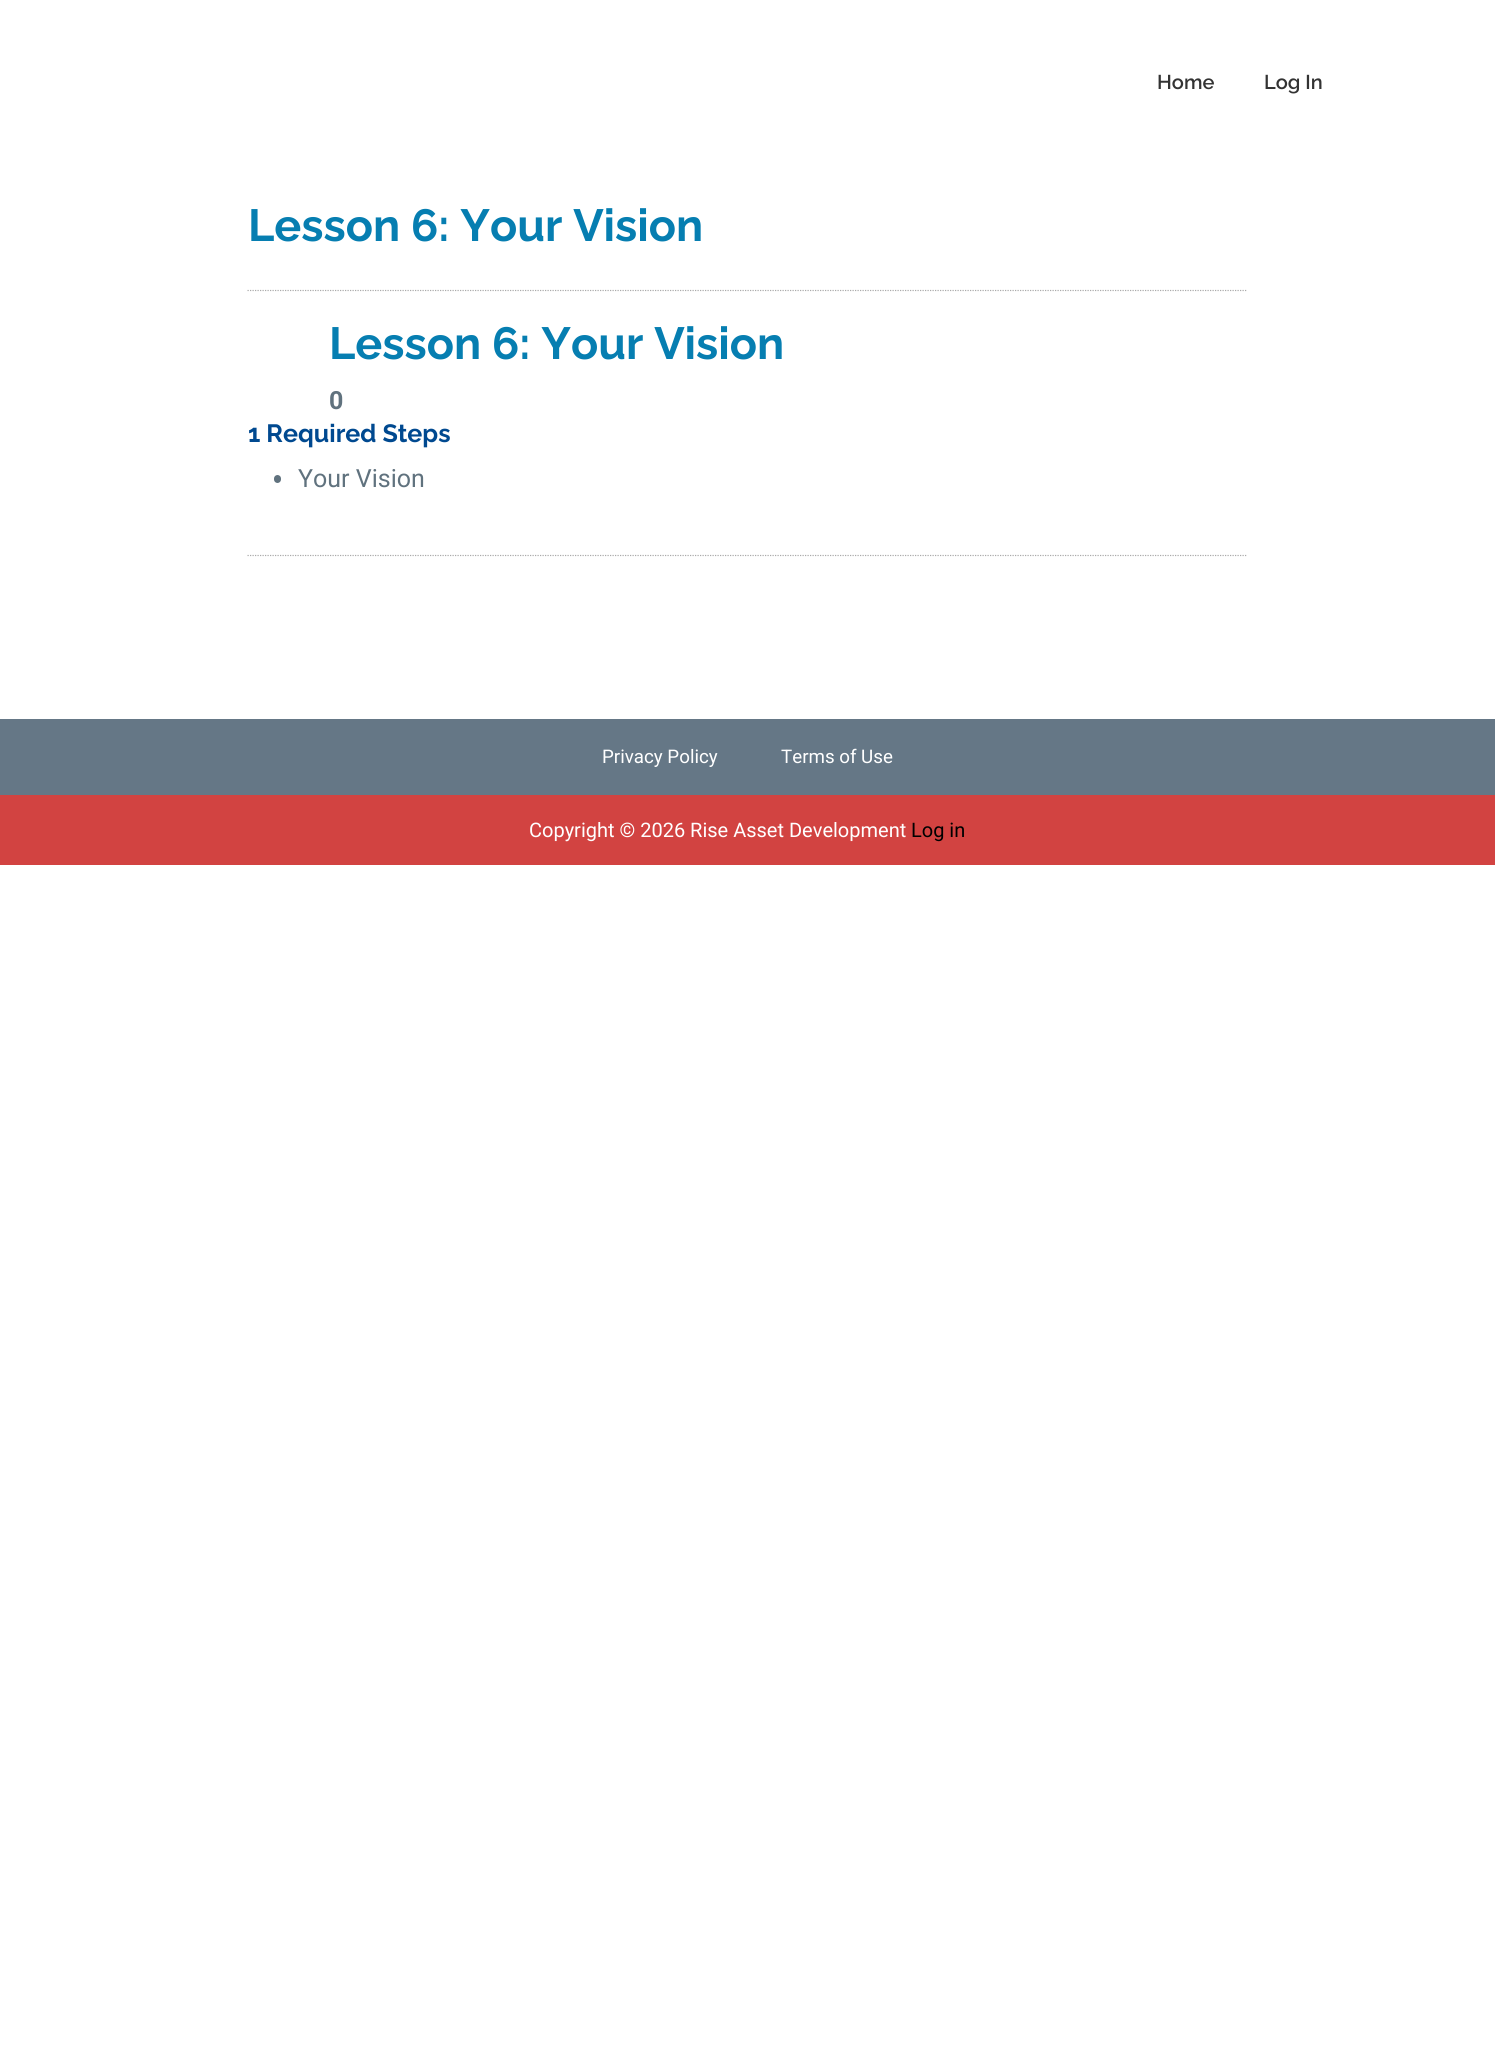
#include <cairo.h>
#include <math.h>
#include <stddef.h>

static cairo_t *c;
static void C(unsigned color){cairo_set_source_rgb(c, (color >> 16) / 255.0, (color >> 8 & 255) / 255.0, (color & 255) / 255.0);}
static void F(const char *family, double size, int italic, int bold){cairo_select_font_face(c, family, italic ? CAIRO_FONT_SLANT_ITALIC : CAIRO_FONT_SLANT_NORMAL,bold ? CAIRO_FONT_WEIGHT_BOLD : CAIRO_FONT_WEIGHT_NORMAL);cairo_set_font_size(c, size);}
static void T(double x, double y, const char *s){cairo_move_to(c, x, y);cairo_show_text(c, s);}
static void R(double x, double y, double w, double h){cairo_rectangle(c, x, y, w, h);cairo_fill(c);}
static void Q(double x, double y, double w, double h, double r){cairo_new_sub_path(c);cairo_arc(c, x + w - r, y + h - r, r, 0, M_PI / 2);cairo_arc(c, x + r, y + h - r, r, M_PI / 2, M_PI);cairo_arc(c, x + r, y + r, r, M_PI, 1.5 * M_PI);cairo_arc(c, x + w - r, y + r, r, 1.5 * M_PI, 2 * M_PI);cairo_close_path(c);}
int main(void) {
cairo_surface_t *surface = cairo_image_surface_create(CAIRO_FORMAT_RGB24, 1495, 2054);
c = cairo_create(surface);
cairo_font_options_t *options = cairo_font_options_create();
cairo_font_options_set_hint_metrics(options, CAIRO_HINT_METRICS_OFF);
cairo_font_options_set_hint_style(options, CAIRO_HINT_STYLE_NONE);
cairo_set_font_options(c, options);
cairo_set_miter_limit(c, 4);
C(0xffffff);
cairo_paint(c);
F("Raleway SemiBold",20,0,0);
C(0x333333);
T(1157,89,"Home");
T(1264,89,"Log In");
F("Raleway",45,0,1);
C(0x067eb1);
T(248,241,"Lesson 6: Your Vision");
cairo_new_path(c);
cairo_move_to(c,247.5,290.5);
cairo_line_to(c,1247.5,290.5);
C(0xaaaaaa);
cairo_set_line_width(c,1.2);
cairo_set_dash(c,(double[]){1.25,1.25},2,0);
cairo_stroke(c);
cairo_new_path(c);
cairo_move_to(c,247.5,555.5);
cairo_line_to(c,1247.5,555.5);
cairo_stroke(c);
C(0x067eb1);
T(329,359,"Lesson 6: Your Vision");
F("Roboto",25,0,1);
C(0x60727e);
T(329,409,"0");
F("Raleway",25,0,1);
C(0x004990);
T(248,442,"1 Required Steps");
C(0x60727e);
Q(274,475,7,8,3.5);
cairo_fill(c);
F("Roboto",25,0,0);
T(298,487,"Your Vision");
C(0x657786);
R(0,719,1495,76);
F("Roboto",18.75,0,0);
C(0xffffff);
T(602,763,"Privacy Policy");
T(781,763,"Terms of Use");
C(0xd24341);
R(0,795,1495,70);
F("Roboto",20,0,0);
C(0xffffff);
T(529,837,"Copyright © 2026 Rise Asset Development");
C(0x000000);
T(911,837,"Log in");
cairo_surface_write_to_png(surface, "o.png");
cairo_font_options_destroy(options);
cairo_destroy(c);
cairo_surface_destroy(surface);
return 0;
}
